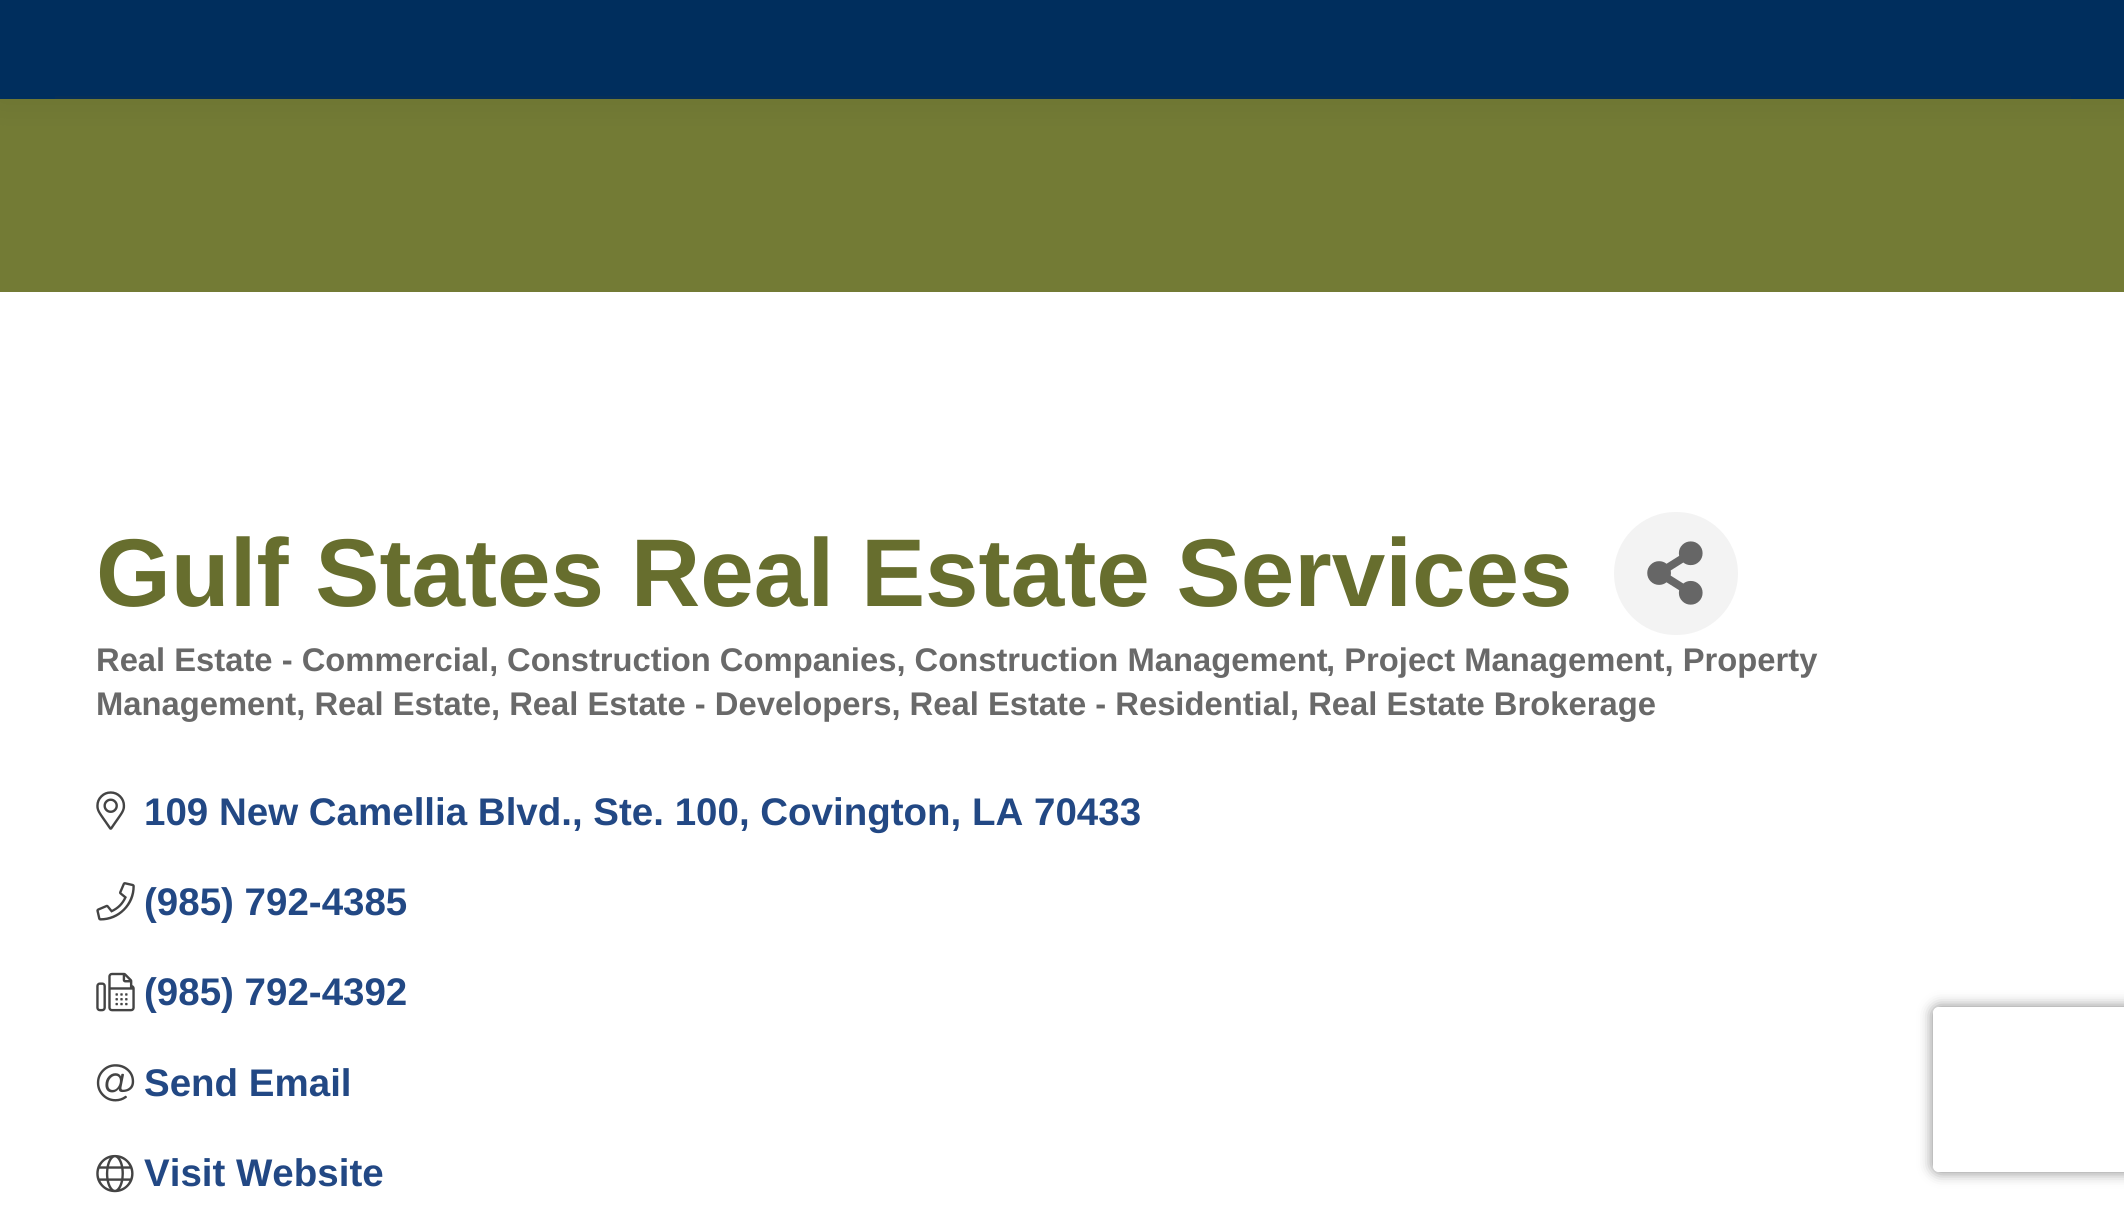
#include <cairo.h>
#include <math.h>
#include <stddef.h>

static cairo_t *c;
static void C(unsigned color){cairo_set_source_rgb(c, (color >> 16) / 255.0, (color >> 8 & 255) / 255.0, (color & 255) / 255.0);}
static void F(const char *family, double size, int italic, int bold){cairo_select_font_face(c, family, italic ? CAIRO_FONT_SLANT_ITALIC : CAIRO_FONT_SLANT_NORMAL,bold ? CAIRO_FONT_WEIGHT_BOLD : CAIRO_FONT_WEIGHT_NORMAL);cairo_set_font_size(c, size);}
static void T(double x, double y, const char *s){cairo_move_to(c, x, y);cairo_show_text(c, s);}
static void R(double x, double y, double w, double h){cairo_rectangle(c, x, y, w, h);cairo_fill(c);}
static void Q(double x, double y, double w, double h, double r){cairo_new_sub_path(c);cairo_arc(c, x + w - r, y + h - r, r, 0, M_PI / 2);cairo_arc(c, x + r, y + h - r, r, M_PI / 2, M_PI);cairo_arc(c, x + r, y + r, r, M_PI, 1.5 * M_PI);cairo_arc(c, x + w - r, y + r, r, 1.5 * M_PI, 2 * M_PI);cairo_close_path(c);}
static void S(double x, double y, double w, double h, double r, double blur, double alpha){cairo_push_group_with_content(c, CAIRO_CONTENT_ALPHA);cairo_set_operator(c, CAIRO_OPERATOR_SOURCE);for (int i = 15; i >= -15 && fmin(w, h) + blur * i / 3 > 0; i -= 2) {double e = blur * i / 6;cairo_set_source_rgba(c, 0, 0, 0, alpha * erfc((i - 1) / 8.5) / 2);Q(x - e, y - e, w + 2 * e, h + 2 * e, fmax(0, fmin(r + e + blur * .6, fmin(w, h) / 2 + e)));cairo_fill(c);}cairo_pattern_t *soft = cairo_pop_group(c);cairo_mask(c, soft);cairo_pattern_destroy(soft);}
static void I(const char *path, double x, double y, double w, double h){cairo_surface_t *image = cairo_image_surface_create_from_png(path);cairo_save(c);cairo_set_source_surface(c, image, x, y);cairo_rectangle(c, x, y, w, h);cairo_fill(c);cairo_restore(c);cairo_surface_destroy(image);}
int main(void) {
cairo_surface_t *surface = cairo_image_surface_create(CAIRO_FORMAT_RGB24, 2124, 1210);
c = cairo_create(surface);
cairo_font_options_t *options = cairo_font_options_create();
cairo_font_options_set_hint_metrics(options, CAIRO_HINT_METRICS_OFF);
cairo_font_options_set_hint_style(options, CAIRO_HINT_STYLE_NONE);
cairo_set_font_options(c, options);
cairo_set_miter_limit(c, 4);
C(0xffffff);
cairo_paint(c);
C(0x737b35);
R(0,99,2124,193);
C(0x000000);
S(-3,-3,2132,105,0,20.5,.07);
C(0x002e5d);
R(0,0,2124,99);
C(0x062f58);
R(55,96,2016,3);
F("Liberation Sans",96.25,0,1);
C(0x676e2e);
T(96,606,"Gulf States Real Estate Services");
C(0xf3f3f3);
Q(1614,512,124,123,61.5);
cairo_fill(c);
I("1.png",1647,541,56,64);
F("Liberation Sans",32.75,0,1);
C(0x696969);
T(96,671,"Real Estate - Commercial,");
T(507,671,"Construction Companies, Construction Management");
T(1326,671,", Project Management, Property");
T(96,715,"Management, Real Estate, Real Estate - Developers, Real Estate - Residential, Real Estate Brokerage");
I("2.png",96,791,30,39);
F("Liberation Sans",38.5,0,1);
C(0x224884);
T(144,825,"109 New Camellia Blvd., Ste. 100, Covington, LA 70433");
I("3.png",96,882,39,39);
T(144,915,"(985) 792-4385");
I("4.png",96,972,39,40);
T(144,1005,"(985) 792-4392");
I("5.png",96,1064,39,38);
T(144,1096,"Send Email");
I("6.png",96,1154,38,39);
T(144,1186,"Visit Website");
cairo_save(c);
cairo_set_fill_rule(c,CAIRO_FILL_RULE_EVEN_ODD);
cairo_new_path(c);
cairo_move_to(c,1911,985);
cairo_line_to(c,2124,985);
cairo_line_to(c,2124,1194);
cairo_line_to(c,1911,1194);
cairo_close_path(c);
cairo_move_to(c,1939,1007);
cairo_line_to(c,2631,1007);
cairo_curve_to(c,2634.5,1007,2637,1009.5,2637,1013);
cairo_line_to(c,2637,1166);
cairo_curve_to(c,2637,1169.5,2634.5,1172,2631,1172);
cairo_line_to(c,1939,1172);
cairo_curve_to(c,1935.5,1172,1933,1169.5,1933,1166);
cairo_line_to(c,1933,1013);
cairo_curve_to(c,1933,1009.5,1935.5,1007,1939,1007);
cairo_close_path(c);
cairo_clip(c);
C(0x808080);
S(1933,1007,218,165,6,7,1);
cairo_restore(c);
cairo_surface_write_to_png(surface, "o.png");
cairo_font_options_destroy(options);
cairo_destroy(c);
cairo_surface_destroy(surface);
return 0;
}
